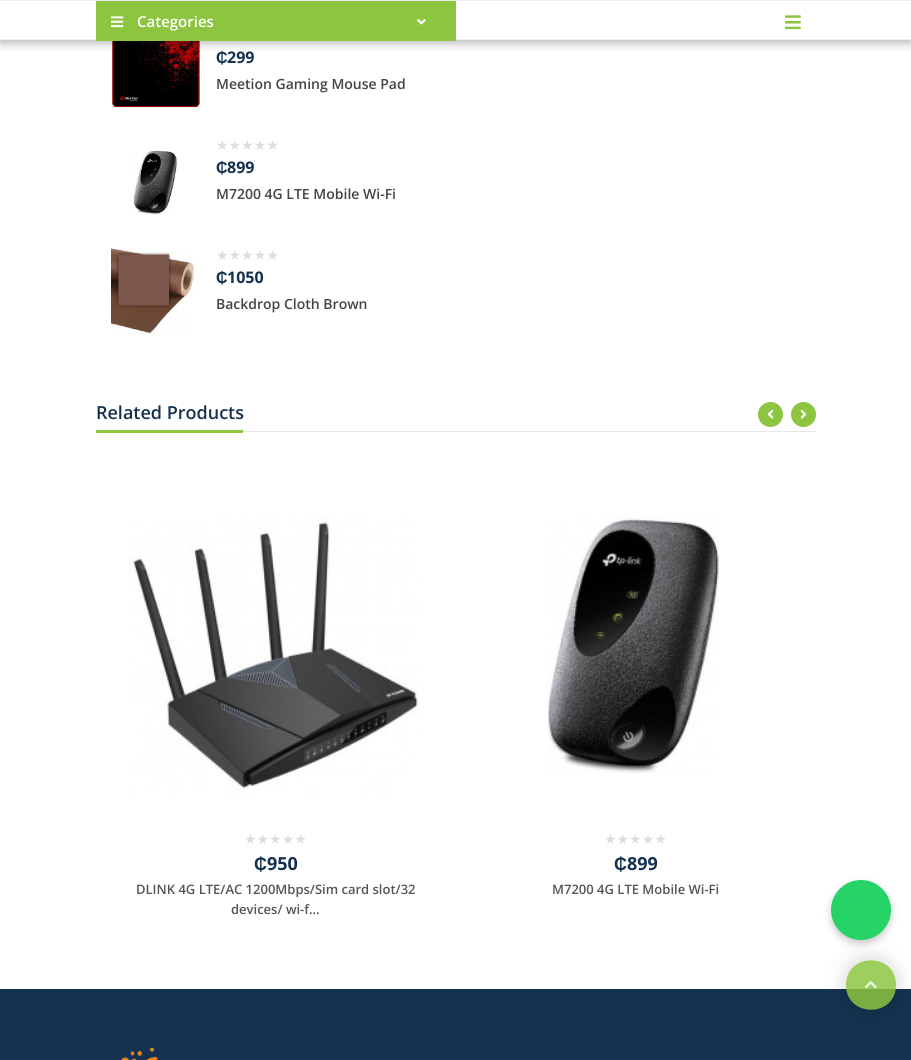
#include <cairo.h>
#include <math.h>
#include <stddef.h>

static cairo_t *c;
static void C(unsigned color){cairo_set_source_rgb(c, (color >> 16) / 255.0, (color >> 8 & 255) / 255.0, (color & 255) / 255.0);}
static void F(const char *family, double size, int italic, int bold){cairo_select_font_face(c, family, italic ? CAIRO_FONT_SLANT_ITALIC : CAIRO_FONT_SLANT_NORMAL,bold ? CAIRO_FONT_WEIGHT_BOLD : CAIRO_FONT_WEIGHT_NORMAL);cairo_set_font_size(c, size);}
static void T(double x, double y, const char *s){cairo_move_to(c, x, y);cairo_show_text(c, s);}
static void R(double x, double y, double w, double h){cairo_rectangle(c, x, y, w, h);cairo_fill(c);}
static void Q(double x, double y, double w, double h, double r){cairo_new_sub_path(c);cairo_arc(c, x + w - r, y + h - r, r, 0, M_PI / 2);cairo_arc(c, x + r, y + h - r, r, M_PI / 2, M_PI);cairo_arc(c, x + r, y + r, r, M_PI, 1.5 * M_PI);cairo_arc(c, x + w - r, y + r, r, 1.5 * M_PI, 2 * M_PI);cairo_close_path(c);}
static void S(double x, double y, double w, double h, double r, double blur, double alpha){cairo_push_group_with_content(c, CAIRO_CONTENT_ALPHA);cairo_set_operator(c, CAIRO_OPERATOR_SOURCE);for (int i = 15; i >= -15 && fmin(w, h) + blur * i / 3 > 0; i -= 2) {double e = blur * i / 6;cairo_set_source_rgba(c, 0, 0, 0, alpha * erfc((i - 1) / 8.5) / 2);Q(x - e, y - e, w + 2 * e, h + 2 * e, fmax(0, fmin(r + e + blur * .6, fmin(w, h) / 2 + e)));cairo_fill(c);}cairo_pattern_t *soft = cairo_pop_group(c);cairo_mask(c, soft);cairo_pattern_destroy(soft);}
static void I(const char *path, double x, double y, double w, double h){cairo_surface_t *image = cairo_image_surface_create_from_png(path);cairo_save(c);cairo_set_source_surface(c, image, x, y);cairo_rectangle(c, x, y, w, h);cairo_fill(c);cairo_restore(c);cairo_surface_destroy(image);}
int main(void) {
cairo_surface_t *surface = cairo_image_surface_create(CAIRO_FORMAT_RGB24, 911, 1060);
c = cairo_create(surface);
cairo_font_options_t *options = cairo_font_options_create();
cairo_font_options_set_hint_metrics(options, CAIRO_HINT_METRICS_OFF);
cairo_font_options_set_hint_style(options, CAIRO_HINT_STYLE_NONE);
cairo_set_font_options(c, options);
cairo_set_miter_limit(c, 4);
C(0xffffff);
cairo_paint(c);
I("4.png",111,41,89,67);
C(0x000000);
S(0,3,911,40,0,5,.3);
C(0xffffff);
R(0,1,911,38);
C(0xededed);
R(0,0,911,1);
R(0,39,911,1);
C(0x8dc540);
R(96,1,360,40);
I("1.png",111,16,13,12);
F("Open Sans SemiBold",15,0,0);
C(0xffffff);
T(137,27,"Categories");
I("2.png",417,19,9,6);
I("3.png",785,15,16,15);
F("Liberation Sans",16,0,1);
C(0x143250);
T(216,63,"₵");
F("Open Sans",16,0,1);
T(227,63,"299");
F("Open Sans SemiBold",14,0,0);
C(0x444444);
T(216,89,"Meetion Gaming Mouse Pad");
I("5.png",133,150,44,65);
F("DejaVu Sans",14,0,0);
C(0xdddddd);
T(216,150,"★★★★★");
F("Liberation Sans",16,0,1);
C(0x143250);
T(216,173,"₵");
F("Open Sans",16,0,1);
T(227,173,"899");
F("Open Sans SemiBold",14,0,0);
C(0x444444);
T(216,199,"M7200 4G LTE Mobile Wi-Fi");
I("6.png",111,248,84,86);
F("DejaVu Sans",14,0,0);
C(0xdddddd);
T(216,260,"★★★★★");
F("Liberation Sans",16,0,1);
C(0x143250);
T(216,283,"₵");
F("Open Sans",16,0,1);
T(227,283,"1050");
F("Open Sans SemiBold",14,0,0);
C(0x444444);
T(216,309,"Backdrop Cloth Brown");
C(0xe6e6e6);
R(243,431,573,1);
F("Open Sans SemiBold",18,0,0);
C(0x143250);
T(96,419,"Related Products");
C(0x8dc540);
R(96,430,147,3);
cairo_new_path(c);
cairo_arc(c,770.5,414.5,12,0,2 * M_PI);
cairo_fill_preserve(c);
cairo_set_line_width(c,1);
cairo_stroke(c);
I("7.png",767,409,7,10);
cairo_arc(c,803.5,414.5,12,0,2 * M_PI);
cairo_fill_preserve(c);
cairo_stroke(c);
I("8.png",800,409,7,10);
I("9.png",127,517,291,278);
F("DejaVu Sans",14,0,0);
C(0xdddddd);
T(244,844,"★★★★★");
F("Liberation Sans",18,0,1);
C(0x143250);
T(254,870,"₵");
F("Open Sans",18,0,1);
T(267,870,"950");
F("Open Sans SemiBold",13,0,0);
C(0x555555);
T(136,894,"DLINK 4G LTE/AC 1200Mbps/Sim card slot/32");
T(231,914,"devices/ wi-f...");
I("10.png",547,517,172,257);
F("DejaVu Sans",14,0,0);
C(0xdddddd);
T(604,844,"★★★★★");
F("Liberation Sans",18,0,1);
C(0x143250);
T(614,870,"₵");
F("Open Sans",18,0,1);
T(627,870,"899");
F("Open Sans SemiBold",13,0,0);
C(0x555555);
T(552,894,"M7200 4G LTE Mobile Wi-Fi");
C(0x000000);
S(831,884,60,60,30,4,.2);
C(0x143250);
R(0,989,911,71);
cairo_save(c);
cairo_set_fill_rule(c,CAIRO_FILL_RULE_EVEN_ODD);
cairo_new_path(c);
cairo_move_to(c,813,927);
cairo_line_to(c,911,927);
cairo_line_to(c,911,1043);
cairo_line_to(c,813,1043);
cairo_close_path(c);
cairo_move_to(c,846,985);
cairo_curve_to(c,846,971,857,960,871,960);
cairo_curve_to(c,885,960,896,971,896,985);
cairo_curve_to(c,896,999,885,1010,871,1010);
cairo_curve_to(c,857,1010,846,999,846,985);
cairo_close_path(c);
cairo_clip(c);
C(0x000000);
S(846,960,50,50,25,10.5,.17);
cairo_restore(c);
C(0x25d366);
cairo_arc(c,861,910,30,0,2 * M_PI);
cairo_fill(c);
cairo_set_source_rgba(c,0.553,0.773,0.251,0.84);
cairo_new_path(c);
cairo_move_to(c,846,985);
cairo_curve_to(c,846,952,896,952,896,985);
cairo_curve_to(c,896,1018,846,1018,846,985);
cairo_close_path(c);
cairo_fill(c);
I("11.png",864,981,13,8);
I("12.png",121,1048,38,12);
cairo_surface_write_to_png(surface, "o.png");
cairo_font_options_destroy(options);
cairo_destroy(c);
cairo_surface_destroy(surface);
return 0;
}
